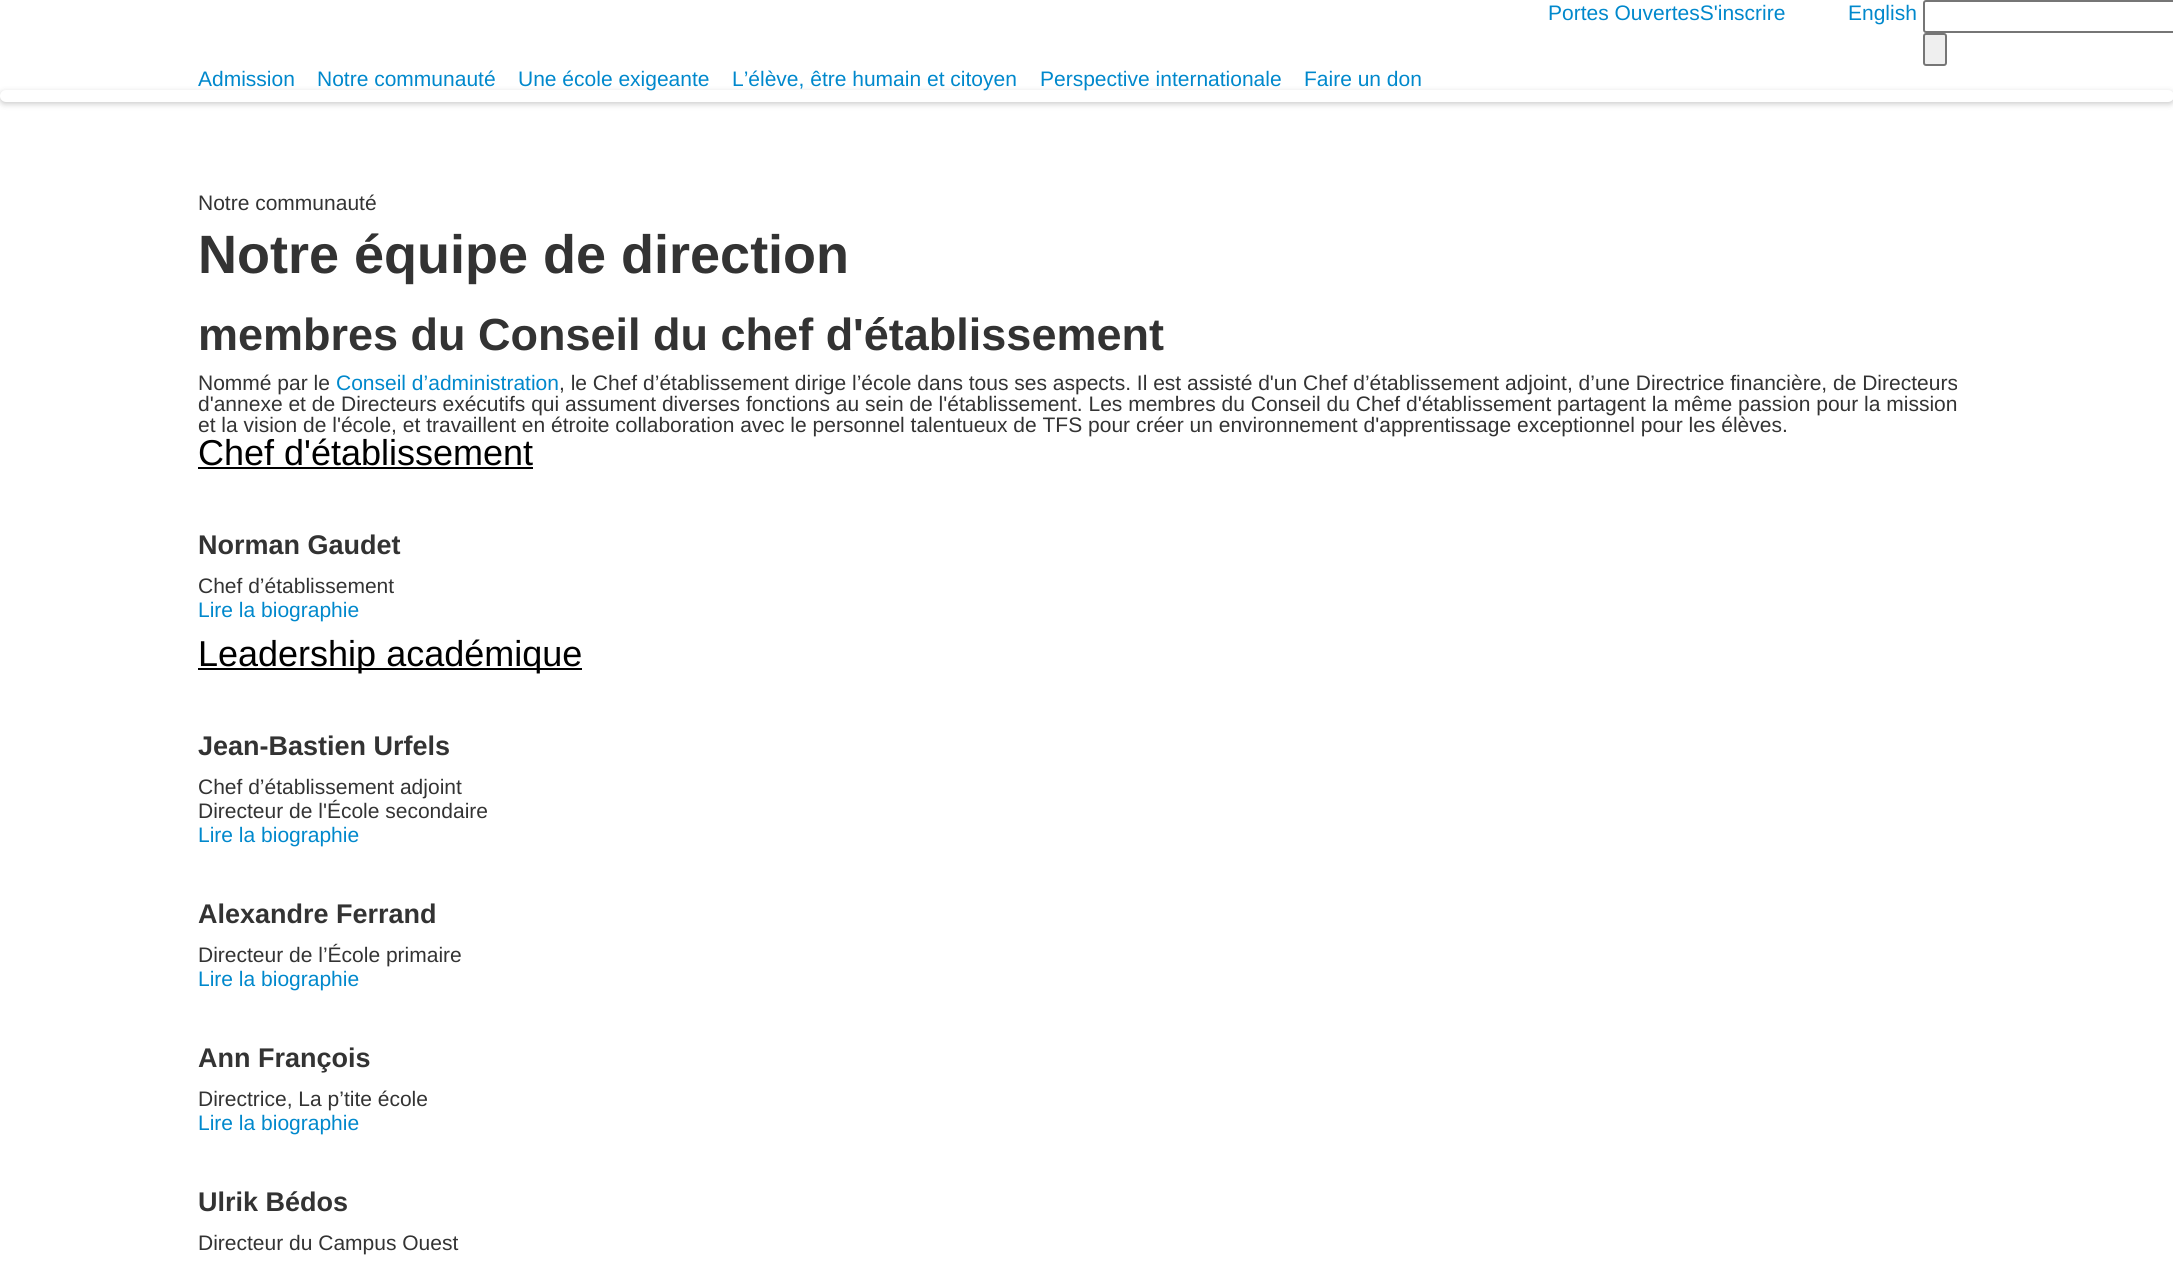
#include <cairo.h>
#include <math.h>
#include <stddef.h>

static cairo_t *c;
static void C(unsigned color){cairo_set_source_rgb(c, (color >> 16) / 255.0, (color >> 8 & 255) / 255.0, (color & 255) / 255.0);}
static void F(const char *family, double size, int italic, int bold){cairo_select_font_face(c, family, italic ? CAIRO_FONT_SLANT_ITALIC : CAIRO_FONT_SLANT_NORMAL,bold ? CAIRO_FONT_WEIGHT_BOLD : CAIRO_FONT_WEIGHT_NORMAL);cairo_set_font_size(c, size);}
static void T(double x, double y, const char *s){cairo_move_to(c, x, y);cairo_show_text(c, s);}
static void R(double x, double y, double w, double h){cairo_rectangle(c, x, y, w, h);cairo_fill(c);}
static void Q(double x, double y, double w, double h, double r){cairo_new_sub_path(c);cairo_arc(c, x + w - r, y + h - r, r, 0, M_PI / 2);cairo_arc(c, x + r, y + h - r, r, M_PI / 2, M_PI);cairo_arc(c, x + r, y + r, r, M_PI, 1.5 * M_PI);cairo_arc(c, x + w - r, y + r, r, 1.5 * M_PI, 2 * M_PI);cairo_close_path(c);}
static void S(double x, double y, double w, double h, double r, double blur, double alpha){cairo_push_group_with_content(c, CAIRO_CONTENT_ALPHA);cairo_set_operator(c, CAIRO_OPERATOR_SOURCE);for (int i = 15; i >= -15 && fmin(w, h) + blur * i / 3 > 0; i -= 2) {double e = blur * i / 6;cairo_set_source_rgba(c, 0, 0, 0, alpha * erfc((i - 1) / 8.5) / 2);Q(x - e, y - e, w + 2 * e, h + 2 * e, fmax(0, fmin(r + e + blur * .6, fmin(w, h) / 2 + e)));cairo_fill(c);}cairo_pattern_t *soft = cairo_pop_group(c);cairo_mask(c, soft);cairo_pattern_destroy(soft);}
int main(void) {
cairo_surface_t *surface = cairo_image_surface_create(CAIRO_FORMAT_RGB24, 2173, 1262);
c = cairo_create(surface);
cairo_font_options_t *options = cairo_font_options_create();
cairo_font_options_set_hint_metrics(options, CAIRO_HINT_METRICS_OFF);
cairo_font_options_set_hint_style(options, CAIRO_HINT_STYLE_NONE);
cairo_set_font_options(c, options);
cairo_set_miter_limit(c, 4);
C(0xffffff);
cairo_paint(c);
F("Liberation Sans",21,0,0);
C(0x0088cc);
T(1548,20,"Portes OuvertesS'inscrire");
T(1848,20,"English");
Q(1924,1,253,31,2);
C(0x767676);
cairo_stroke(c);
C(0xefefef);
Q(1924,34,22,31,2);
cairo_fill_preserve(c);
C(0x767676);
cairo_stroke(c);
C(0x000000);
S(0,92,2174,12,6,3,.2);
C(0x0088cc);
T(198,86,"Admission");
T(317,86,"Notre communauté");
C(0xffffff);
Q(0,90,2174,12,6);
cairo_fill(c);
C(0x0088cc);
T(518,86,"Une école exigeante");
T(732,86,"L’élève, être humain et citoyen");
T(1040,86,"Perspective internationale");
T(1304,86,"Faire un don");
C(0x333333);
T(198,210,"Notre communauté");
F("Liberation Sans",54,0,1);
T(198,273,"Notre équipe de direction");
F("Liberation Sans",45,0,1);
T(198,350,"membres du Conseil du chef d'établissement");
F("Liberation Sans",21,0,0);
T(198,390,"Nommé par le");
C(0x0088cc);
T(336,390,"Conseil d’administration");
C(0x333333);
T(559,390,", le Chef d’établissement dirige l’école dans tous ses aspects. Il est assisté d'un Chef d’établissement adjoint, d’une Directrice financière, de Directeurs");
T(198,411,"d'annexe et de Directeurs exécutifs qui assument diverses fonctions au sein de l'établissement. Les membres du Conseil du Chef d'établissement partagent la même passion pour la mission");
T(198,432,"et la vision de l'école, et travaillent en étroite collaboration avec le personnel talentueux de TFS pour créer un environnement d'apprentissage exceptionnel pour les élèves.");
F("Liberation Sans",36,0,0);
C(0x000000);
T(198,465,"Chef d'établissement");
R(198,467,335,2);
F("Liberation Sans",27,0,1);
C(0x333333);
T(198,554,"Norman Gaudet");
F("Liberation Sans",21,0,0);
T(198,593,"Chef d’établissement");
C(0x0088cc);
T(198,617,"Lire la biographie");
C(0x000000);
R(198,668,384,2);
F("Liberation Sans",36,0,0);
T(198,666,"Leadership académique");
F("Liberation Sans",27,0,1);
C(0x333333);
T(198,755,"Jean-Bastien Urfels");
F("Liberation Sans",21,0,0);
T(198,794,"Chef d’établissement adjoint");
T(198,818,"Directeur de l'École secondaire");
C(0x0088cc);
T(198,842,"Lire la biographie");
F("Liberation Sans",27,0,1);
C(0x333333);
T(198,923,"Alexandre Ferrand");
F("Liberation Sans",21,0,0);
T(198,962,"Directeur de l’École primaire");
C(0x0088cc);
T(198,986,"Lire la biographie");
F("Liberation Sans",27,0,1);
C(0x333333);
T(198,1067,"Ann François");
F("Liberation Sans",21,0,0);
T(198,1106,"Directrice, La p’tite école");
C(0x0088cc);
T(198,1130,"Lire la biographie");
F("Liberation Sans",27,0,1);
C(0x333333);
T(198,1211,"Ulrik Bédos");
F("Liberation Sans",21,0,0);
T(198,1250,"Directeur du Campus Ouest");
cairo_surface_write_to_png(surface, "o.png");
cairo_font_options_destroy(options);
cairo_destroy(c);
cairo_surface_destroy(surface);
return 0;
}
